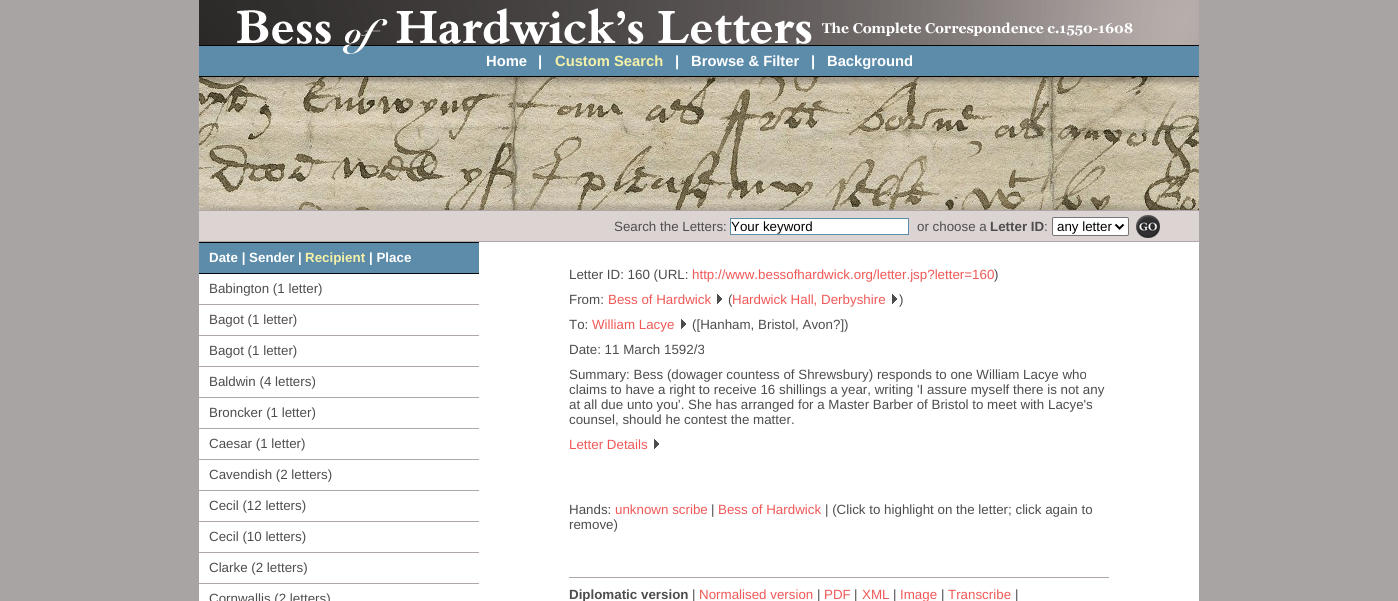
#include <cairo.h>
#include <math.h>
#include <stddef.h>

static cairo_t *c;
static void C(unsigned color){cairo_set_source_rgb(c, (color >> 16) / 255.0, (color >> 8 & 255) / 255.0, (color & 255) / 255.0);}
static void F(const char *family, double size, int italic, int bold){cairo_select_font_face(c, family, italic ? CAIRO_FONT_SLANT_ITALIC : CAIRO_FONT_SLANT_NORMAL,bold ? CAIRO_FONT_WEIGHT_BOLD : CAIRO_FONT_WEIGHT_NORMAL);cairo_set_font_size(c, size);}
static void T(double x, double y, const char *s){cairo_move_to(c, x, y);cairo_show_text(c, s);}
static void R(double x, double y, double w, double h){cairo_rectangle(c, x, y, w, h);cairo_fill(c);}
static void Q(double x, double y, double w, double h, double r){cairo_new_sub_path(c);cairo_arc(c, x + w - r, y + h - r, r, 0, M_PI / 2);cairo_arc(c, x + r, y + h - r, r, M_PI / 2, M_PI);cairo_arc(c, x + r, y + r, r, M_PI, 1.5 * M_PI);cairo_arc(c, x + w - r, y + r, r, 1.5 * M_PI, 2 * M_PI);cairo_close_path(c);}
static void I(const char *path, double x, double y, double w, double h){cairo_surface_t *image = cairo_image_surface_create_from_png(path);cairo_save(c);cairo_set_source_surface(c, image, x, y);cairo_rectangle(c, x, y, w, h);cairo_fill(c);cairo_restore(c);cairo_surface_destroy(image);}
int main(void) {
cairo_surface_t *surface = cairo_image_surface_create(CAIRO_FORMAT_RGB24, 1398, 601);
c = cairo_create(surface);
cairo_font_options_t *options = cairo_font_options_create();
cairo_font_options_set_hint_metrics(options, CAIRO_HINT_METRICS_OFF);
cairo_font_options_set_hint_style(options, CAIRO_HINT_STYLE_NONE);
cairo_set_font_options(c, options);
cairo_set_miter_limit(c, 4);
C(0xa8a4a3);
cairo_paint(c);
C(0xffffff);
R(199,242,1000,359);
I("1.png",199,0,1000,46);
C(0x5c8caa);
R(199,46,1000,30);
I("2.png",343,46,21,8);
F("Liberation Sans",14.75,0,1);
C(0xffffff);
T(486,66,"Home");
T(538,66,"|");
C(0xf5f1a7);
T(555,66,"Custom Search");
C(0xffffff);
T(675,66,"|");
T(691,66,"Browse & Filter");
T(811,66,"|");
T(827,66,"Background");
I("3.png",199,76,1000,135);
C(0xdcd3d3);
R(199,211,1000,30);
C(0xafa7a7);
R(199,241,1000,1);
F("Liberation Sans",13.35,0,0);
C(0x4e4c4d);
T(614,231,"Search the Letters:");
C(0xffffff);
cairo_rectangle(c,730.5,218.5,178,16);
cairo_fill_preserve(c);
C(0x5c8caa);
cairo_set_line_width(c,1);
cairo_stroke(c);
C(0x000000);
T(731,231,"Your keyword");
C(0x4e4c4d);
T(917,231,"or choose a");
F("Liberation Sans",13.35,0,1);
T(990,231,"Letter ID");
F("Liberation Sans",13.35,0,0);
T(1044,231,":");
C(0xffffff);
Q(1052.5,217.5,76,18,1.5);
cairo_fill_preserve(c);
C(0x767676);
cairo_stroke(c);
cairo_new_path(c);
cairo_move_to(c,1115.5,224.5);
cairo_line_to(c,1119.5,228.5);
cairo_line_to(c,1123.5,224.5);
C(0x000000);
cairo_set_line_width(c,2);
cairo_stroke(c);
T(1057,231,"any letter");
I("4.png",1136,215,24,23);
C(0x5c8caa);
R(199,243,280,30);
C(0x050505);
R(199,242,280,1);
R(199,273,280,1);
F("Liberation Sans",13.35,0,1);
C(0xffffff);
T(209,262,"Date | Sender |");
C(0xf5f1a7);
T(305,262,"Recipient");
C(0xffffff);
T(369,262,"| Place");
C(0xafa7a5);
R(199,304,280,1);
F("Liberation Sans",13.35,0,0);
C(0x4e4c4d);
T(209,293,"Babington (1 letter)");
C(0xafa7a5);
R(199,335,280,1);
C(0x4e4c4d);
T(209,324,"Bagot (1 letter)");
C(0xafa7a5);
R(199,366,280,1);
C(0x4e4c4d);
T(209,355,"Bagot (1 letter)");
C(0xafa7a5);
R(199,397,280,1);
C(0x4e4c4d);
T(209,386,"Baldwin (4 letters)");
C(0xafa7a5);
R(199,428,280,1);
C(0x4e4c4d);
T(209,417,"Broncker (1 letter)");
C(0xafa7a5);
R(199,459,280,1);
C(0x4e4c4d);
T(209,448,"Caesar (1 letter)");
C(0xafa7a5);
R(199,490,280,1);
C(0x4e4c4d);
T(209,479,"Cavendish (2 letters)");
C(0xafa7a5);
R(199,521,280,1);
C(0x4e4c4d);
T(209,510,"Cecil (12 letters)");
C(0xafa7a5);
R(199,552,280,1);
C(0x4e4c4d);
T(209,541,"Cecil (10 letters)");
C(0xafa7a5);
R(199,583,280,1);
C(0x4e4c4d);
T(209,572,"Clarke (2 letters)");
T(209,603,"Cornwallis (2 letters)");
T(569,279,"Letter ID: 160 (URL:");
C(0xf05857);
T(692,279,"http://www.bessofhardwick.org/letter.jsp?letter=160");
C(0x4e4c4d);
T(994,279,")");
T(569,304,"From:");
C(0xf05857);
T(608,304,"Bess of Hardwick");
I("5.png",717,294,5,10);
C(0x4e4c4d);
T(728,304,"(");
C(0xf05857);
T(732,304,"Hardwick Hall, Derbyshire");
I("5.png",892,294,5,10);
C(0x4e4c4d);
T(899,304,")");
T(569,329,"To:");
C(0xf05857);
T(592,329,"William Lacye");
I("5.png",681,319,5,10);
C(0x4e4c4d);
T(692,329,"([Hanham, Bristol, Avon?])");
T(569,354,"Date: 11 March 1592/3");
T(569,379,"Summary: Bess (dowager countess of Shrewsbury) responds to one William Lacye who");
T(569,394,"claims to have a right to receive 16 shillings a year, writing 'I assure myself there is not any");
T(569,409,"at all due unto you'. She has arranged for a Master Barber of Bristol to meet with Lacye's");
T(569,424,"counsel, should he contest the matter.");
C(0xf05857);
T(569,449,"Letter Details");
I("5.png",654,439,5,10);
C(0x4e4c4d);
T(569,514,"Hands:");
C(0xf05857);
T(615,514,"unknown scribe");
C(0x4e4c4d);
T(711,514,"|");
C(0xf05857);
T(718,514,"Bess of Hardwick");
C(0x4e4c4d);
T(825,514,"| (Click to highlight on the letter; click again to");
T(569,529,"remove)");
C(0xafa7a5);
R(569,577,540,1);
F("Liberation Sans",13.35,0,1);
C(0x4e4c4d);
T(569,599,"Diplomatic version");
F("Liberation Sans",13.35,0,0);
T(692,599,"|");
C(0xf05857);
T(699,599,"Normalised version");
C(0x4e4c4d);
T(817,599,"|");
C(0xf05857);
T(824,599,"PDF");
C(0x4e4c4d);
T(854,599,"|");
C(0xf05857);
T(862,599,"XML");
C(0x4e4c4d);
T(893,599,"|");
C(0xf05857);
T(900,599,"Image");
C(0x4e4c4d);
T(941,599,"|");
C(0xf05857);
T(948,599,"Transcribe");
C(0x4e4c4d);
T(1015,599,"|");
cairo_surface_write_to_png(surface, "o.png");
cairo_font_options_destroy(options);
cairo_destroy(c);
cairo_surface_destroy(surface);
return 0;
}
